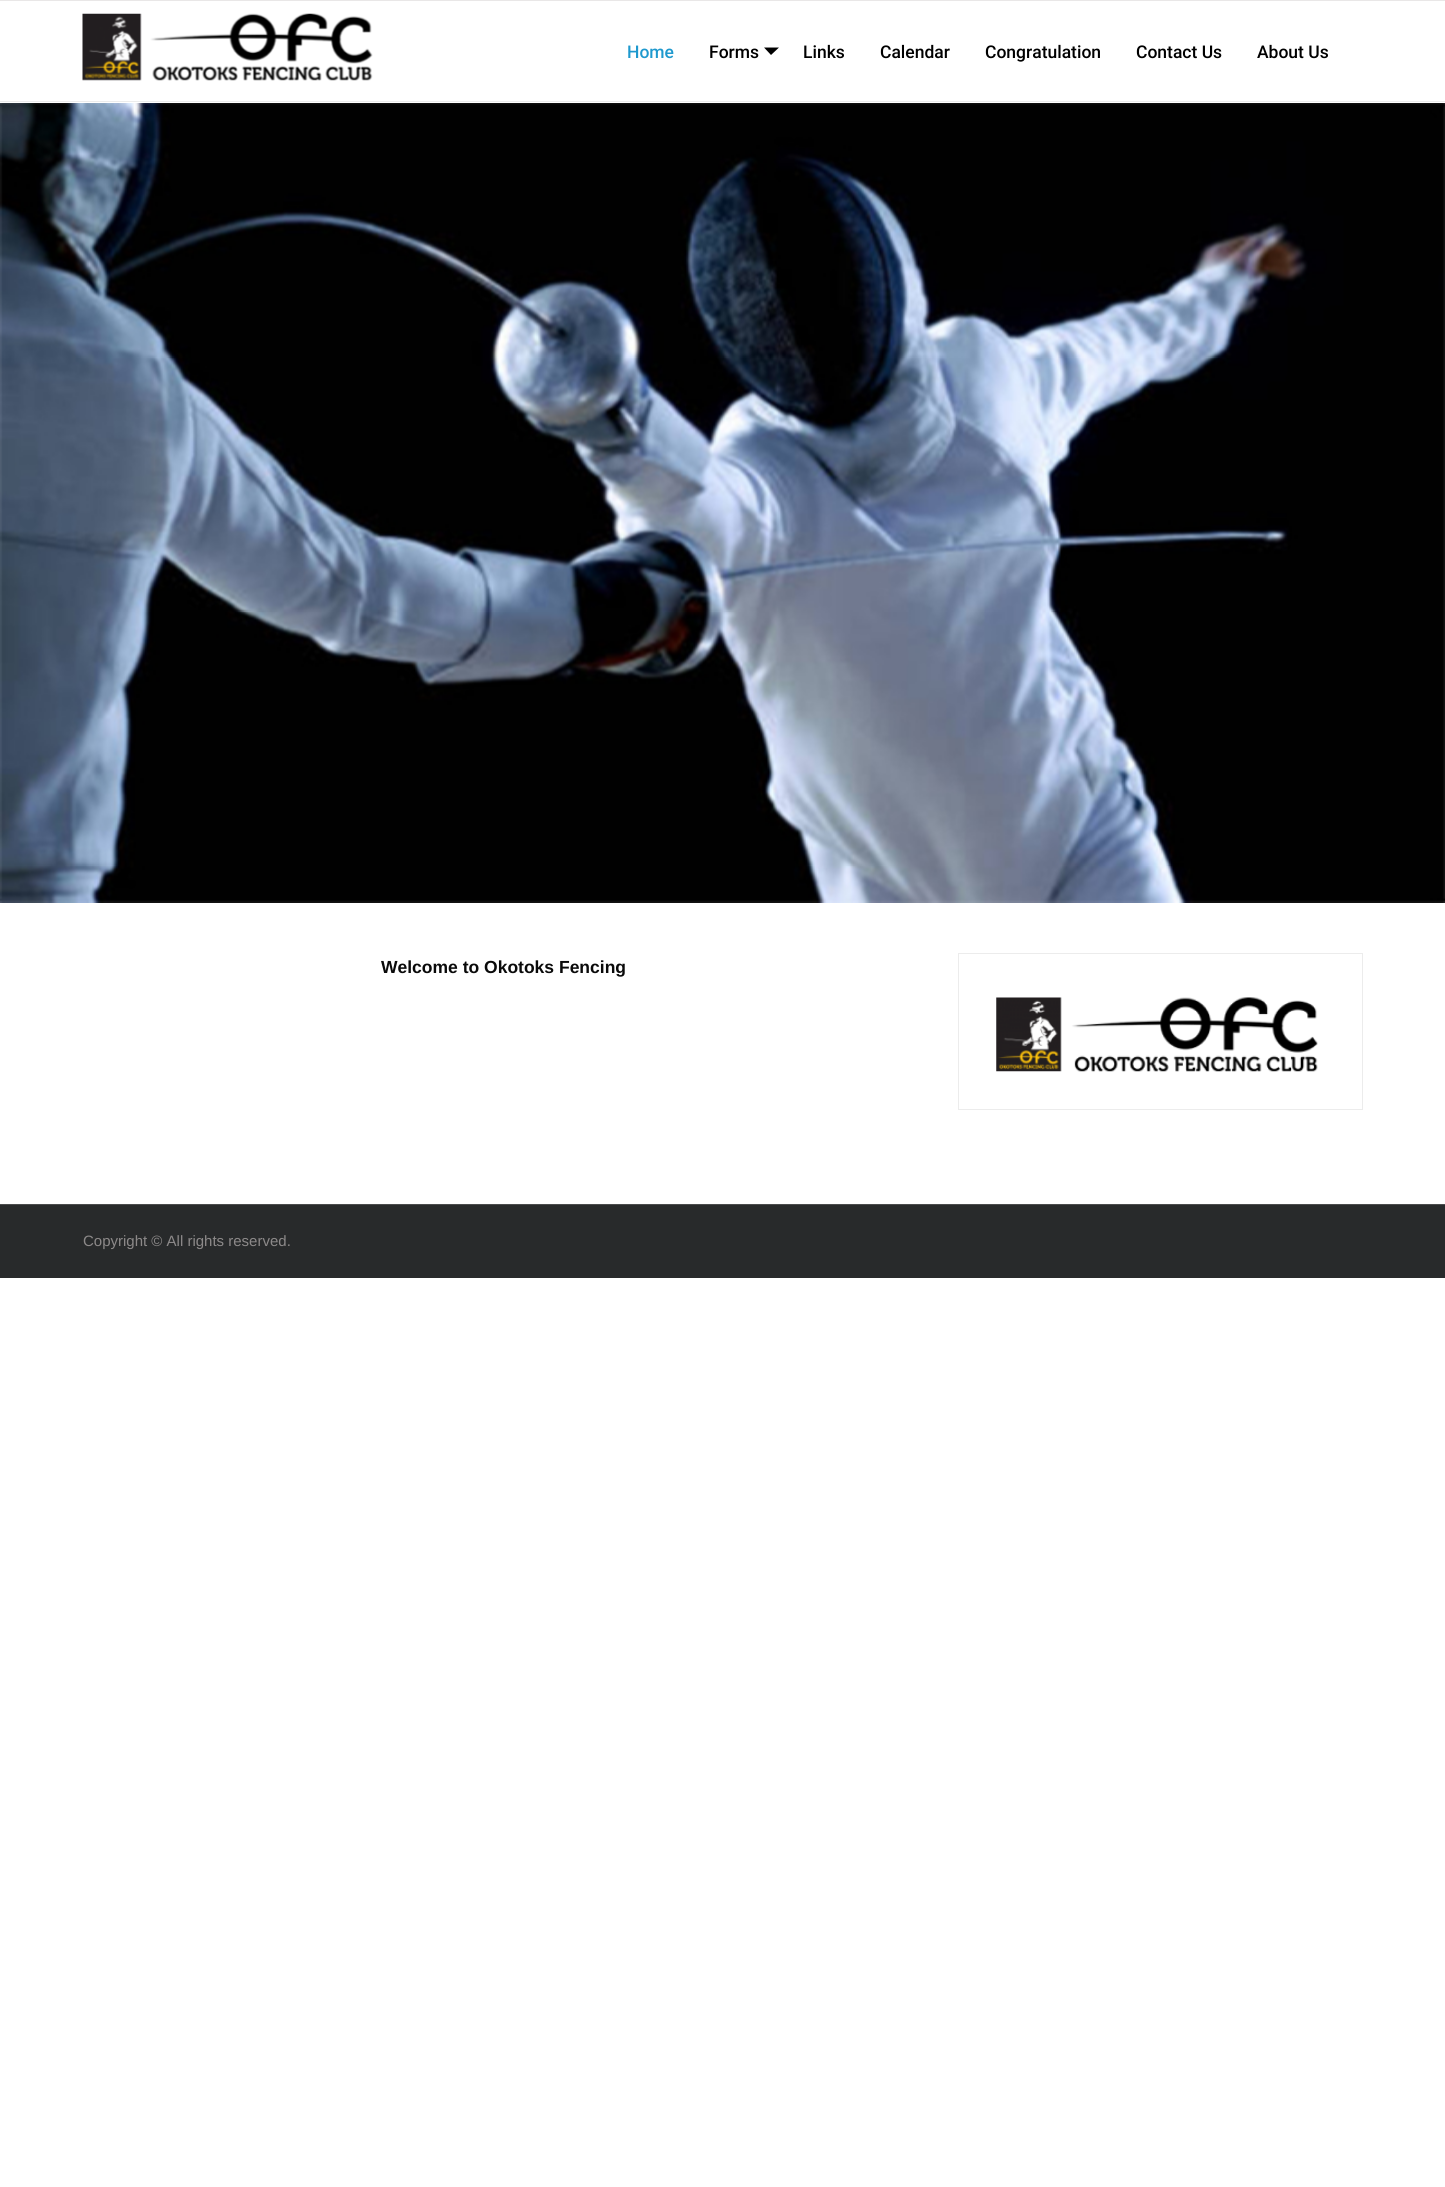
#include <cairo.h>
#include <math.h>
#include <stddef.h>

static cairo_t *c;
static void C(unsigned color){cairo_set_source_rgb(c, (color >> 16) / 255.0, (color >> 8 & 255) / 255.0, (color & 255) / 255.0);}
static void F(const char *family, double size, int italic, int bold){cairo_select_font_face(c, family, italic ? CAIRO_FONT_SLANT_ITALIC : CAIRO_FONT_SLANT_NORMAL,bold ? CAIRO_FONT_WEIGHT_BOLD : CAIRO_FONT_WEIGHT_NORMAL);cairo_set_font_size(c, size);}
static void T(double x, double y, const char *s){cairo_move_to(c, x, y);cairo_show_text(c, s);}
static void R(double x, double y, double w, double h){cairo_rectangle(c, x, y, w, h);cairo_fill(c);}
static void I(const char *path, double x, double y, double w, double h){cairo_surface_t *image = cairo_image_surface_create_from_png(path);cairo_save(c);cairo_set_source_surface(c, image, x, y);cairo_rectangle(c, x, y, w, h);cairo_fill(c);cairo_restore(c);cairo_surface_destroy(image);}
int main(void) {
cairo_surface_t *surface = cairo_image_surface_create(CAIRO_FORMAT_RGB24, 1445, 2187);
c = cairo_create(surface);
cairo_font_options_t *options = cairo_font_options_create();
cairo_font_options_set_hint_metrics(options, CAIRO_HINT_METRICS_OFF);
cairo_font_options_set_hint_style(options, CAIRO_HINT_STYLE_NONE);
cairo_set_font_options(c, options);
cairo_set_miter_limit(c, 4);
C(0xffffff);
cairo_paint(c);
C(0xececec);
R(0,101,1445,1);
C(0xe9e7e7);
R(0,0,1445,1);
I("1.png",82,13,291,68);
F("Roboto Medium",17.5,0,0);
C(0x1e99ce);
T(627,58,"Home");
C(0x000000);
T(709,58,"Forms");
cairo_new_path(c);
cairo_move_to(c,764,47.5);
cairo_line_to(c,779,47.5);
cairo_line_to(c,771,55);
cairo_close_path(c);
cairo_fill(c);
T(803,58,"Links");
T(880,58,"Calendar");
T(985,58,"Congratulation");
T(1136,58,"Contact Us");
T(1257,58,"About Us");
I("2.png",0,103,1445,800);
F("Liberation Sans",17.5,0,1);
C(0x0a0a0a);
T(381,973,"Welcome to Okotoks Fencing");
cairo_rectangle(c,958.5,953.5,404,156);
C(0xececec);
cairo_set_line_width(c,1);
cairo_stroke(c);
I("3.png",996,997,322,75);
C(0x282a2b);
R(0,1205,1445,73);
C(0x4b4c4d);
R(0,1204,1445,1);
F("Liberation Sans",15,0,0);
C(0x8c8989);
T(83,1246,"Copyright © All rights reserved.");
cairo_surface_write_to_png(surface, "o.png");
cairo_font_options_destroy(options);
cairo_destroy(c);
cairo_surface_destroy(surface);
return 0;
}
